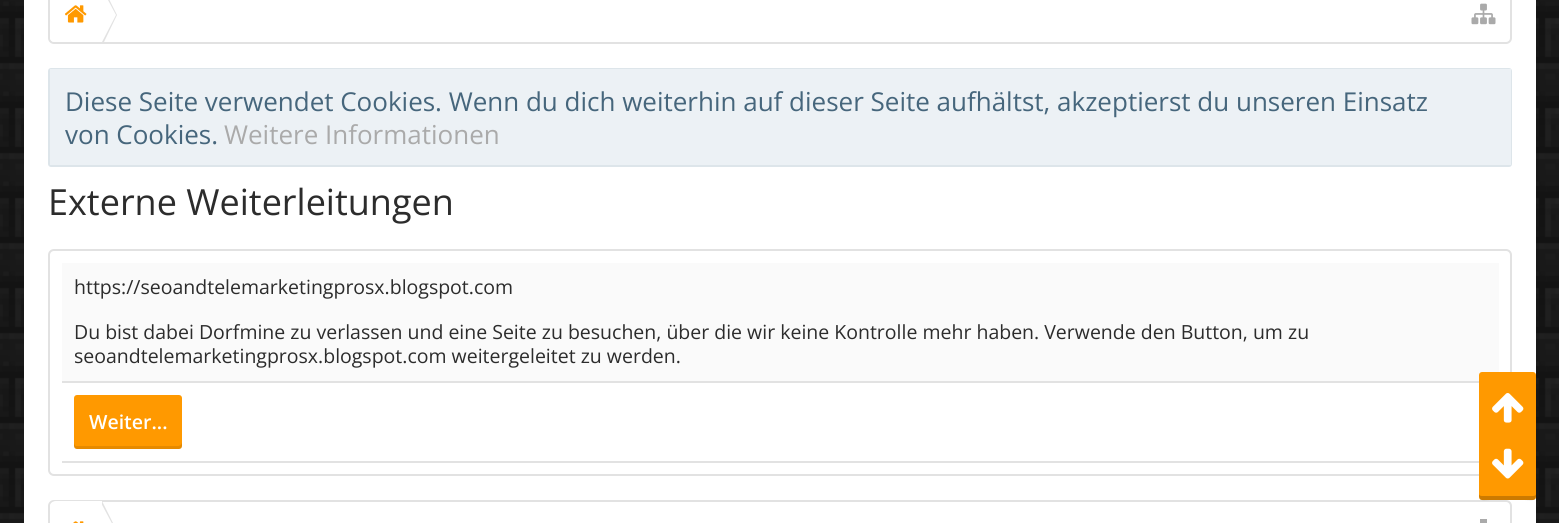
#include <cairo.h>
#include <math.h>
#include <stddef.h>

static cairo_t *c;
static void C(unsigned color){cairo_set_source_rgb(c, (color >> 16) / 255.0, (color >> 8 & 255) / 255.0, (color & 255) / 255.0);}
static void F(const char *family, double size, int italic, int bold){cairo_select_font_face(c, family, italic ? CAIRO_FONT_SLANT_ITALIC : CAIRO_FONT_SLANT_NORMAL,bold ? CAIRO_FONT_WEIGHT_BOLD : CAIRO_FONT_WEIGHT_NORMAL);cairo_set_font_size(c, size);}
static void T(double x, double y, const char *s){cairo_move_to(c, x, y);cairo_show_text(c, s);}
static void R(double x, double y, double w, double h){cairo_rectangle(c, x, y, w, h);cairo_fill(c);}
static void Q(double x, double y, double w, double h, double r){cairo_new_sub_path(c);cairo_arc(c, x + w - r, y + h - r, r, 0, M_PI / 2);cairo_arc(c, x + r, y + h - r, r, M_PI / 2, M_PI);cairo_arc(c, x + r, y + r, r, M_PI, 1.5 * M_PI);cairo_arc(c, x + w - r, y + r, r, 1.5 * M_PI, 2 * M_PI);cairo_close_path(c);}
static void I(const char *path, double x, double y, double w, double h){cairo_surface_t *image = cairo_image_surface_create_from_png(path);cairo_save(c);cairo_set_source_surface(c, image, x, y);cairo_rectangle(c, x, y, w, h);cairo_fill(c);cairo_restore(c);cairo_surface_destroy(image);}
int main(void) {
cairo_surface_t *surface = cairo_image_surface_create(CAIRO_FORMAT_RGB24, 1559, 523);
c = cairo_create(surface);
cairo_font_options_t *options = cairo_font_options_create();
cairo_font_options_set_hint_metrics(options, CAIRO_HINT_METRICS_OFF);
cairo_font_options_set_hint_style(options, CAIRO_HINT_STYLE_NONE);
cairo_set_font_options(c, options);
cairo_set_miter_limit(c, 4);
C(0xffffff);
cairo_paint(c);
I("1.png",0,0,1559,523);
C(0xffffff);
R(24,0,1512,523);
Q(49,-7,1462,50,5);
C(0xe2e2e2);
cairo_stroke(c);
cairo_save(c);
Q(50,-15,1461,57,5);
cairo_clip(c);
C(0xffffff);
cairo_new_path(c);
cairo_move_to(c,56,-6);
cairo_line_to(c,102,-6);
cairo_line_to(c,102,44);
cairo_line_to(c,56,44);
cairo_curve_to(c,52.5,44,50,41.5,50,38);
cairo_line_to(c,50,0);
cairo_curve_to(c,50,-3.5,52.5,-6,56,-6);
cairo_close_path(c);
cairo_fill(c);
cairo_restore(c);
I("2.png",65,5,22,18);
cairo_new_path(c);
cairo_move_to(c,104,42);
cairo_line_to(c,102,42);
cairo_line_to(c,102,-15);
cairo_line_to(c,117,15);
cairo_close_path(c);
cairo_fill(c);
C(0xffffff);
cairo_new_path(c);
cairo_move_to(c,102,42);
cairo_line_to(c,100,42);
cairo_line_to(c,100,-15);
cairo_line_to(c,116,15);
cairo_close_path(c);
cairo_fill(c);
I("3.png",1471,3,25,22);
Q(49,69,1462,97,2);
C(0xdde5ea);
cairo_stroke(c);
C(0xecf1f5);
R(50,69,1461,96);
F("Open Sans",26,0,0);
C(0x46667c);
T(65,111,"Diese Seite verwendet Cookies. Wenn du dich weiterhin auf dieser Seite aufhältst, akzeptierst du unseren Einsatz");
T(65,144,"von Cookies.");
C(0xaaaaaa);
T(224,144,"Weitere Informationen");
F("Open Sans",36,0,0);
C(0x2c2c2c);
T(48,215,"Externe Weiterleitungen");
Q(49,250,1462,225,5);
C(0xe2e2e2);
cairo_stroke(c);
C(0xfafafa);
R(62,263,1437,118);
C(0xe2e2e2);
R(62,381,1417,2);
F("Open Sans",19.5,0,0);
C(0x2c2c2c);
T(74,294,"https://seoandtelemarketingprosx.blogspot.com");
T(74,339,"Du bist dabei Dorfmine zu verlassen und eine Seite zu besuchen, über die wir keine Kontrolle mehr haben. Verwende den Button, um zu");
T(74,363,"seoandtelemarketingprosx.blogspot.com weitergeleitet zu werden.");
C(0xe2e2e2);
R(62,461,1417,2);
C(0xff9900);
Q(74,395,108,54,3);
cairo_fill(c);
cairo_set_source_rgba(c,0,0,0,0.1);
cairo_new_path(c);
cairo_move_to(c,74,442);
cairo_line_to(c,74,446);
cairo_curve_to(c,74,448,75,449,77,449);
cairo_line_to(c,179,449);
cairo_curve_to(c,181,449,182,448,182,446);
cairo_line_to(c,182,442);
cairo_curve_to(c,182,444,180,446,178,446);
cairo_line_to(c,76,446);
cairo_curve_to(c,75,446,74,444,74,442);
cairo_close_path(c);
cairo_fill(c);
F("Open Sans SemiBold",19.5,0,0);
C(0xffffff);
T(89,429,"Weiter...");
Q(49,501,1462,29,5);
C(0xe2e2e2);
cairo_stroke(c);
C(0xffffff);
cairo_new_path(c);
cairo_move_to(c,56,501);
cairo_line_to(c,102,501);
cairo_line_to(c,102,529);
cairo_line_to(c,56,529);
cairo_curve_to(c,52.5,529,50,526.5,50,523);
cairo_line_to(c,50,507);
cairo_curve_to(c,50,503.5,52.5,501,56,501);
cairo_close_path(c);
cairo_fill(c);
I("4.png",73,521,11,2);
C(0xe2e2e2);
cairo_new_path(c);
cairo_move_to(c,104,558);
cairo_line_to(c,102,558);
cairo_line_to(c,102,501);
cairo_line_to(c,117,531);
cairo_close_path(c);
cairo_fill(c);
C(0xffffff);
cairo_new_path(c);
cairo_move_to(c,102,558);
cairo_line_to(c,100,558);
cairo_line_to(c,100,501);
cairo_line_to(c,116,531);
cairo_close_path(c);
cairo_fill(c);
C(0xaaaaaa);
R(1480,519,7,4);
C(0xff9900);
Q(1479,372,57,128,3);
cairo_fill(c);
cairo_set_source_rgba(c,0,0,0,0.2);
cairo_new_path(c);
cairo_move_to(c,1479,494);
cairo_curve_to(c,1479,502,1482,500,1490,500);
cairo_line_to(c,1524,500);
cairo_curve_to(c,1533,500,1536,502,1536,494);
cairo_curve_to(c,1536,495,1535,496,1533,496);
cairo_line_to(c,1482,496);
cairo_curve_to(c,1480,496,1479,495,1479,494);
cairo_close_path(c);
cairo_fill(c);
I("5.png",1492,393,32,30);
I("6.png",1492,448,32,31);
cairo_surface_write_to_png(surface, "o.png");
cairo_font_options_destroy(options);
cairo_destroy(c);
cairo_surface_destroy(surface);
return 0;
}
